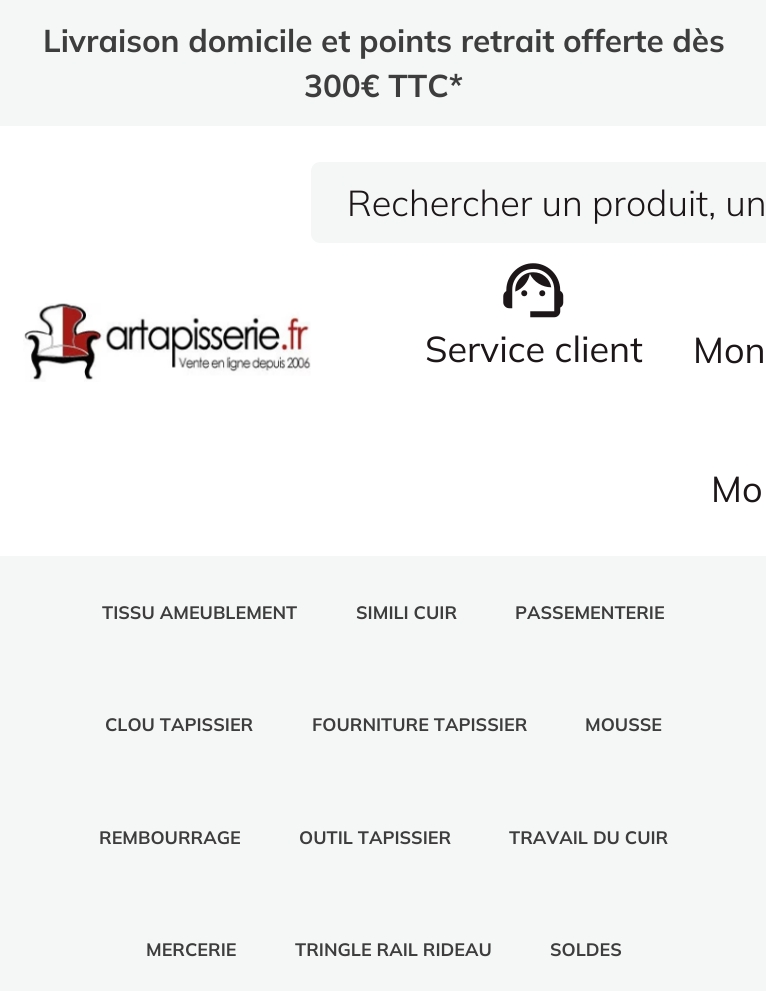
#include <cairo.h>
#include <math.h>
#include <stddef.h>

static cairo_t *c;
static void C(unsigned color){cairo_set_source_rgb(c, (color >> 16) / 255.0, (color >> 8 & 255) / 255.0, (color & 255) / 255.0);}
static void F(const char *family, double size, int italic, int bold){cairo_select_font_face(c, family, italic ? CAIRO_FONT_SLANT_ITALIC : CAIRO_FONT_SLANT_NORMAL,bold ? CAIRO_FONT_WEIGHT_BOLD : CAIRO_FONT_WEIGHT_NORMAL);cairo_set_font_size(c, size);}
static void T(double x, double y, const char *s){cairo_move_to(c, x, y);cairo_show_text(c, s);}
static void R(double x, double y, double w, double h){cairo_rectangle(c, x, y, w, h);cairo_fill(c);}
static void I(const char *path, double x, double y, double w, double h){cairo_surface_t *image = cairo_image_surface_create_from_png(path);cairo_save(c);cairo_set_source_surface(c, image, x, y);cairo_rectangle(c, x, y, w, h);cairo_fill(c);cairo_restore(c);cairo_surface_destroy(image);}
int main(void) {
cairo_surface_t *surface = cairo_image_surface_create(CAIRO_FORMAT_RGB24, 766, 991);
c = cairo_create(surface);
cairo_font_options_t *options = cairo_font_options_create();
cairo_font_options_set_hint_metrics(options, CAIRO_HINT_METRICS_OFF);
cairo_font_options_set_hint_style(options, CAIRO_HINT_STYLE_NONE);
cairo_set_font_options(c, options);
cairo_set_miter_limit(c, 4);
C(0xffffff);
cairo_paint(c);
C(0xf5f7f6);
R(0,0,766,126);
F("Mulish",31.5,0,1);
C(0x3d3d3d);
T(43,52,"Livraison domicile et points retrait offerte dès");
T(304,97,"300€ TTC*");
I("1.png",23,303,288,79);
C(0xf5f7f6);
cairo_new_path(c);
cairo_move_to(c,320,162);
cairo_line_to(c,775,162);
cairo_line_to(c,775,243);
cairo_line_to(c,320,243);
cairo_curve_to(c,315,243,311,239,311,234);
cairo_line_to(c,311,171);
cairo_curve_to(c,311,166,315,162,320,162);
cairo_close_path(c);
cairo_fill(c);
F("Mulish Light",36,0,0);
C(0x1c1619);
T(347,216,"Rechercher un produit, un");
I("2.png",503,263,61,55);
F("Mulish",36,0,0);
T(425,362,"Service client");
T(693,363,"Mon");
T(711,502,"Mo");
C(0xf5f7f6);
R(0,556,766,435);
F("Mulish",18,0,1);
C(0x3d3d3d);
T(102,619,"TISSU AMEUBLEMENT");
T(356,619,"SIMILI CUIR");
T(515,619,"PASSEMENTERIE");
T(105,731,"CLOU TAPISSIER");
T(312,731,"FOURNITURE TAPISSIER");
T(585,731,"MOUSSE");
T(99,844,"REMBOURRAGE");
T(299,844,"OUTIL TAPISSIER");
T(509,844,"TRAVAIL DU CUIR");
T(146,956,"MERCERIE");
T(295,956,"TRINGLE RAIL RIDEAU");
T(550,956,"SOLDES");
cairo_surface_write_to_png(surface, "o.png");
cairo_font_options_destroy(options);
cairo_destroy(c);
cairo_surface_destroy(surface);
return 0;
}
